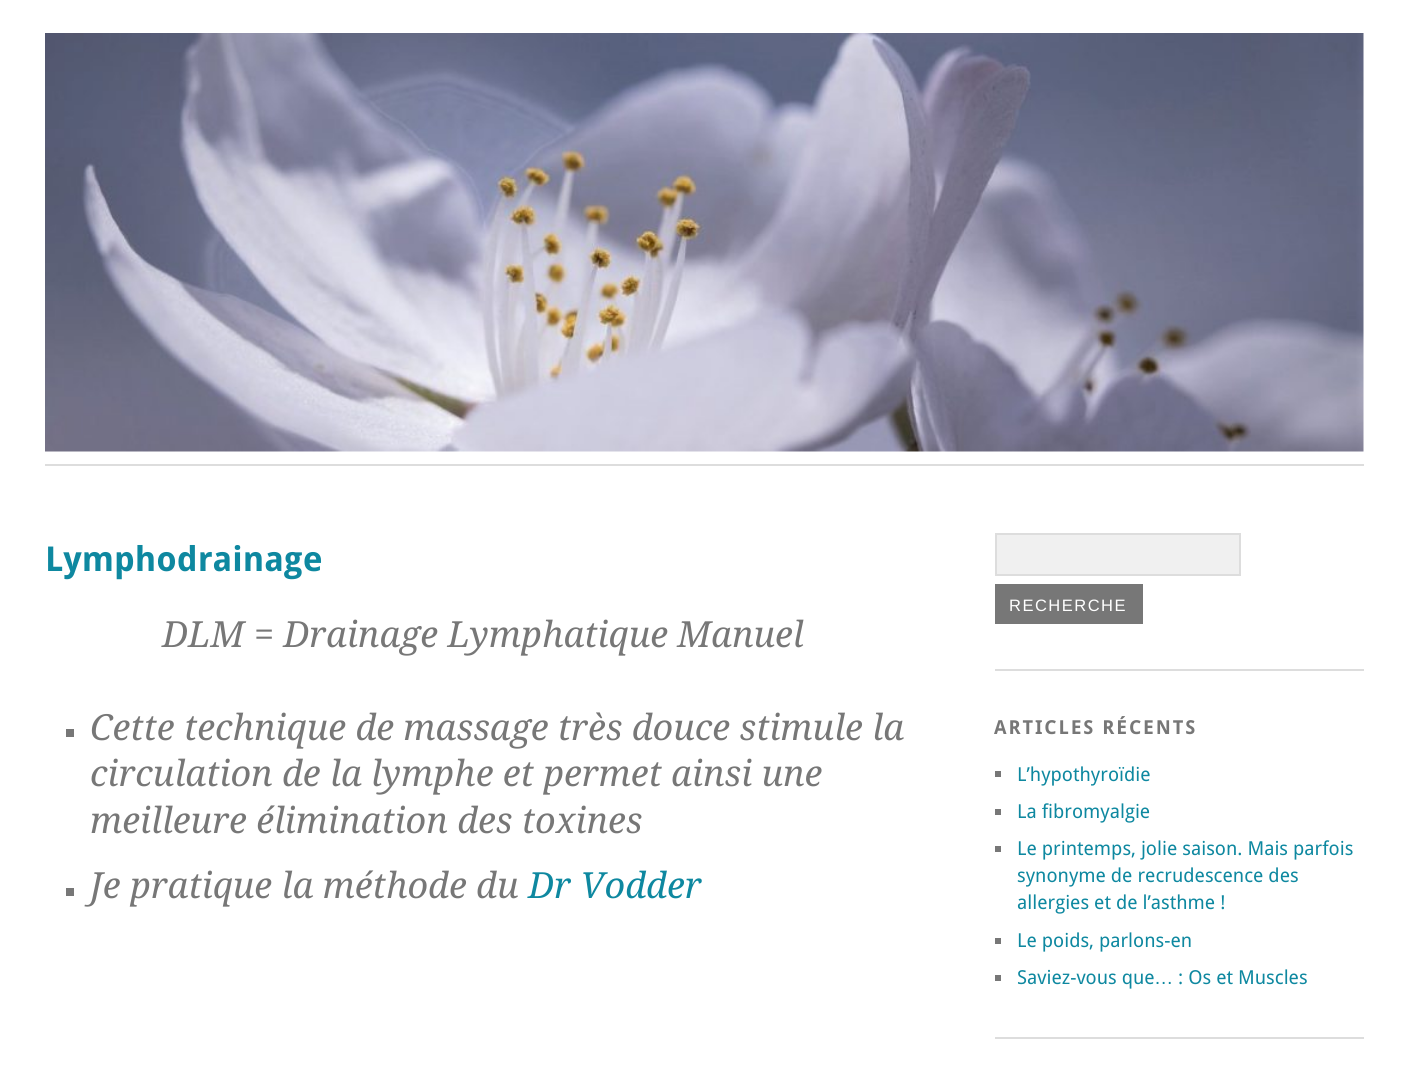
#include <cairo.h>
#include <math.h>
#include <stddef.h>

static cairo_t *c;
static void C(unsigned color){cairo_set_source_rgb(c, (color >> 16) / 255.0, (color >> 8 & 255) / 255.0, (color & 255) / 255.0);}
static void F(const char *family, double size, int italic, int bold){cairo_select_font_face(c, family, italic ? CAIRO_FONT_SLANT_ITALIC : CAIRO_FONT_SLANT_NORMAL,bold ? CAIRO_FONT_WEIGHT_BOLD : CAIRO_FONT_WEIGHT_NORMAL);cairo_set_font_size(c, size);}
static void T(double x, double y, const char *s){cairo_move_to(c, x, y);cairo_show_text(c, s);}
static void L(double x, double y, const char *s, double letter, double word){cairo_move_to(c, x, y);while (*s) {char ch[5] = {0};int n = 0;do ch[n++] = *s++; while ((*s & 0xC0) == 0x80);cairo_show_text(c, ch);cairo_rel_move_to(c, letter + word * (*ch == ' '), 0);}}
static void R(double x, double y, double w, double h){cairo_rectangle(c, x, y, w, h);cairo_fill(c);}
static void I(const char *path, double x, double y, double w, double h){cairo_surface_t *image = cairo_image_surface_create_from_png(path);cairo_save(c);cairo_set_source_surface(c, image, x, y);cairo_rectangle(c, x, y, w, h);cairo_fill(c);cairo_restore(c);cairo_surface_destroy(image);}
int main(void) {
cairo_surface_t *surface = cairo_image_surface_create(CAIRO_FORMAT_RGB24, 1408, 1065);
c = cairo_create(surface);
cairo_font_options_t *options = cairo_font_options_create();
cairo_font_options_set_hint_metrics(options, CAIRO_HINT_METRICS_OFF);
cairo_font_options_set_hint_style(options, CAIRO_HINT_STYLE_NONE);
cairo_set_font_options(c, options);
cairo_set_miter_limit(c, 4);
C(0xffffff);
cairo_paint(c);
I("1.png",45,33,1319,419);
C(0xdddddd);
R(45,464,1319,2);
F("Droid Sans",34.25,0,1);
C(0x0e88a0);
T(45,571,"Lymphodrainage");
F("Droid Serif",36,1,0);
C(0x777777);
T(162,647,"DLM = Drainage Lymphatique Manuel");
R(66,729,8,8);
T(90,740,"Cette technique de massage très douce stimule la");
T(90,786,"circulation de la lymphe et permet ainsi une");
T(90,833,"meilleure élimination des toxines");
R(66,888,8,8);
T(90,898,"Je pratique la méthode du");
C(0x0e88a0);
T(528,898,"Dr Vodder");
C(0xdddddd);
R(995,669,369,2);
C(0xf0f0f0);
cairo_rectangle(c,996,534,244,41);
cairo_fill_preserve(c);
C(0xdddddd);
cairo_stroke(c);
C(0x777777);
R(995,584,148,40);
F("Liberation Sans",16.5,0,0);
C(0xffffff);
L(1009,611,"RECHERCHE",1.5,0);
C(0xdddddd);
R(995,1037,369,2);
F("Droid Sans",19.25,0,1);
C(0x777777);
L(994,734,"ARTICLES RÉCENTS",1.9,0);
R(995,771,6,6);
F("Droid Sans",19.25,0,0);
C(0x0e88a0);
T(1017,781,"L’hypothyroïdie");
C(0x777777);
R(995,809,6,6);
C(0x0e88a0);
T(1017,818,"La fibromyalgie");
C(0x777777);
R(995,846,6,6);
C(0x0e88a0);
T(1017,855,"Le printemps, jolie saison. Mais parfois");
T(1017,882,"synonyme de recrudescence des");
T(1017,909,"allergies et de l’asthme !");
C(0x777777);
R(995,938,6,6);
C(0x0e88a0);
T(1017,947,"Le poids, parlons-en");
C(0x777777);
R(995,975,6,6);
C(0x0e88a0);
T(1017,984,"Saviez-vous que");
T(1178,984,": Os et Muscles");
F("Liberation Sans",19.25,0,0);
T(1154,984,"…");
cairo_surface_write_to_png(surface, "o.png");
cairo_font_options_destroy(options);
cairo_destroy(c);
cairo_surface_destroy(surface);
return 0;
}
